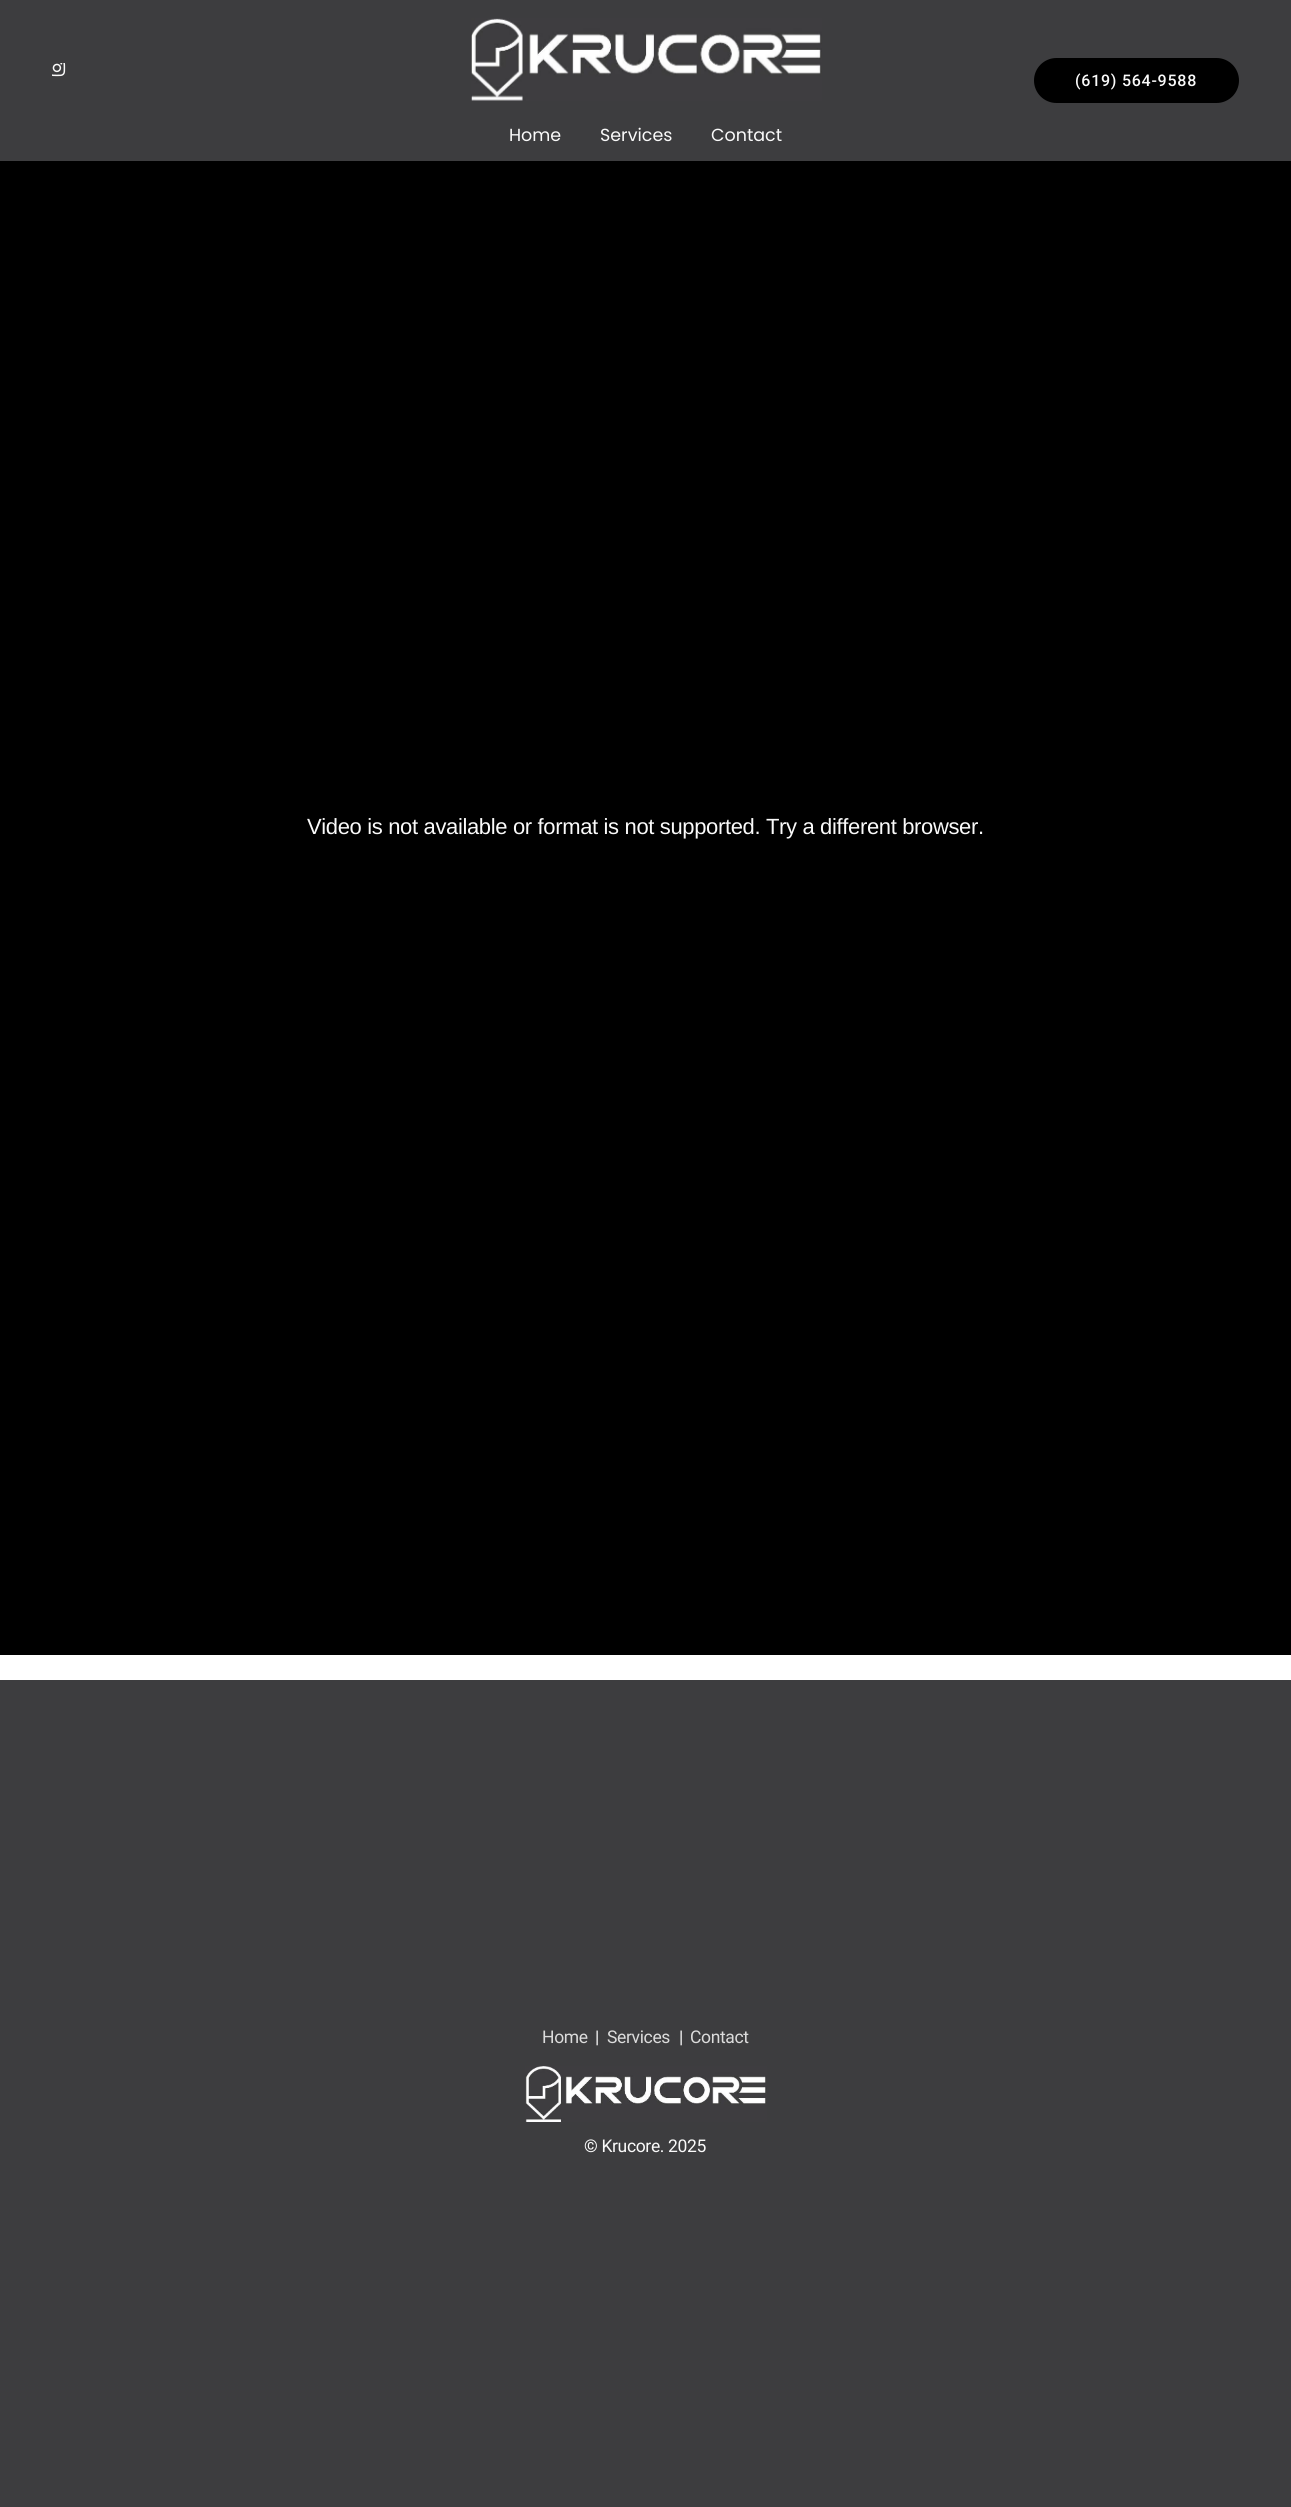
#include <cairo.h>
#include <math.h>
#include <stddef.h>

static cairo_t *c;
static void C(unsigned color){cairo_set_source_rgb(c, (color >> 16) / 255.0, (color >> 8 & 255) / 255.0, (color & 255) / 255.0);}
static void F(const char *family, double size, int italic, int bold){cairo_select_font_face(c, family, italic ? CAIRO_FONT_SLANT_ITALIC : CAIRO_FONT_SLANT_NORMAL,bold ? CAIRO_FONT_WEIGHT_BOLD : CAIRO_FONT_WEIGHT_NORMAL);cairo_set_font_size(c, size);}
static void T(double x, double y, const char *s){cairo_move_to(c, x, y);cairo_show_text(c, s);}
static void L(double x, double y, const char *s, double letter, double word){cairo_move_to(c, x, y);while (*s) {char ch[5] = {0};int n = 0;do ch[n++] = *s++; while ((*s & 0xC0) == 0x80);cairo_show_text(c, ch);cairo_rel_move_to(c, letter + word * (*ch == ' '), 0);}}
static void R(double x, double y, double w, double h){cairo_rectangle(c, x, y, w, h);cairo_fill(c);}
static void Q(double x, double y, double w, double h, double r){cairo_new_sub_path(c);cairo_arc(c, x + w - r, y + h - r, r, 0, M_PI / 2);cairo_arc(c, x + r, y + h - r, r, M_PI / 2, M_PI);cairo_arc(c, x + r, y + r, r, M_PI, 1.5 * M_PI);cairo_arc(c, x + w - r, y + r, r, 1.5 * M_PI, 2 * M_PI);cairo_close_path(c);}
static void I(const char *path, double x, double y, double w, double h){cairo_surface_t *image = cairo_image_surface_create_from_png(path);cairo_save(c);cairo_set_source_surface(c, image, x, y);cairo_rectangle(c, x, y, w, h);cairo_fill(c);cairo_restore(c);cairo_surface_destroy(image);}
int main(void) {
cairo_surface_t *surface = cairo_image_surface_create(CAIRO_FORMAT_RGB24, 1291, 2507);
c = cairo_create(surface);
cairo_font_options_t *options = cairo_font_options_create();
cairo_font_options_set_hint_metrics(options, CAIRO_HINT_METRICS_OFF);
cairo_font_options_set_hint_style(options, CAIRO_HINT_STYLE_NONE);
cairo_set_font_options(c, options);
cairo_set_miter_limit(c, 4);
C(0xffffff);
cairo_paint(c);
C(0x3d3d3f);
R(0,0,1291,161);
I("1.png",52,63,14,14);
C(0x000000);
Q(1034,58,205,45,22.5);
cairo_fill(c);
F("Roboto Medium",16,0,0);
C(0xfafafa);
L(1075,86,"(619) 564-9588",.75,0);
I("2.png",471,18,351,83);
F("Poppins",17.5,0,0);
T(509,141,"Home");
T(600,141,"Services");
T(711,141,"Contact");
C(0x000000);
R(0,161,1291,1494);
F("Liberation Sans",22,0,0);
C(0xfafafa);
L(307,834,"Video is not available or format is not supported. Try a different browser.",-.35,0);
C(0x3d3d3f);
R(0,1680,1291,827);
F("Roboto",17.5,0,0);
C(0xdcdcdc);
L(542,2043,"Home",-.35,0);
C(0xfafafa);
L(595,2043,"|",-.35,0);
C(0xdcdcdc);
L(607,2043,"Services",-.35,0);
C(0xfafafa);
L(679,2043,"|",-.35,0);
C(0xdcdcdc);
L(690,2043,"Contact",-.35,0);
I("3.png",525,2066,242,56);
C(0xfafafa);
L(584,2152,"© Krucore. 2025",-.35,0);
cairo_surface_write_to_png(surface, "o.png");
cairo_font_options_destroy(options);
cairo_destroy(c);
cairo_surface_destroy(surface);
return 0;
}
